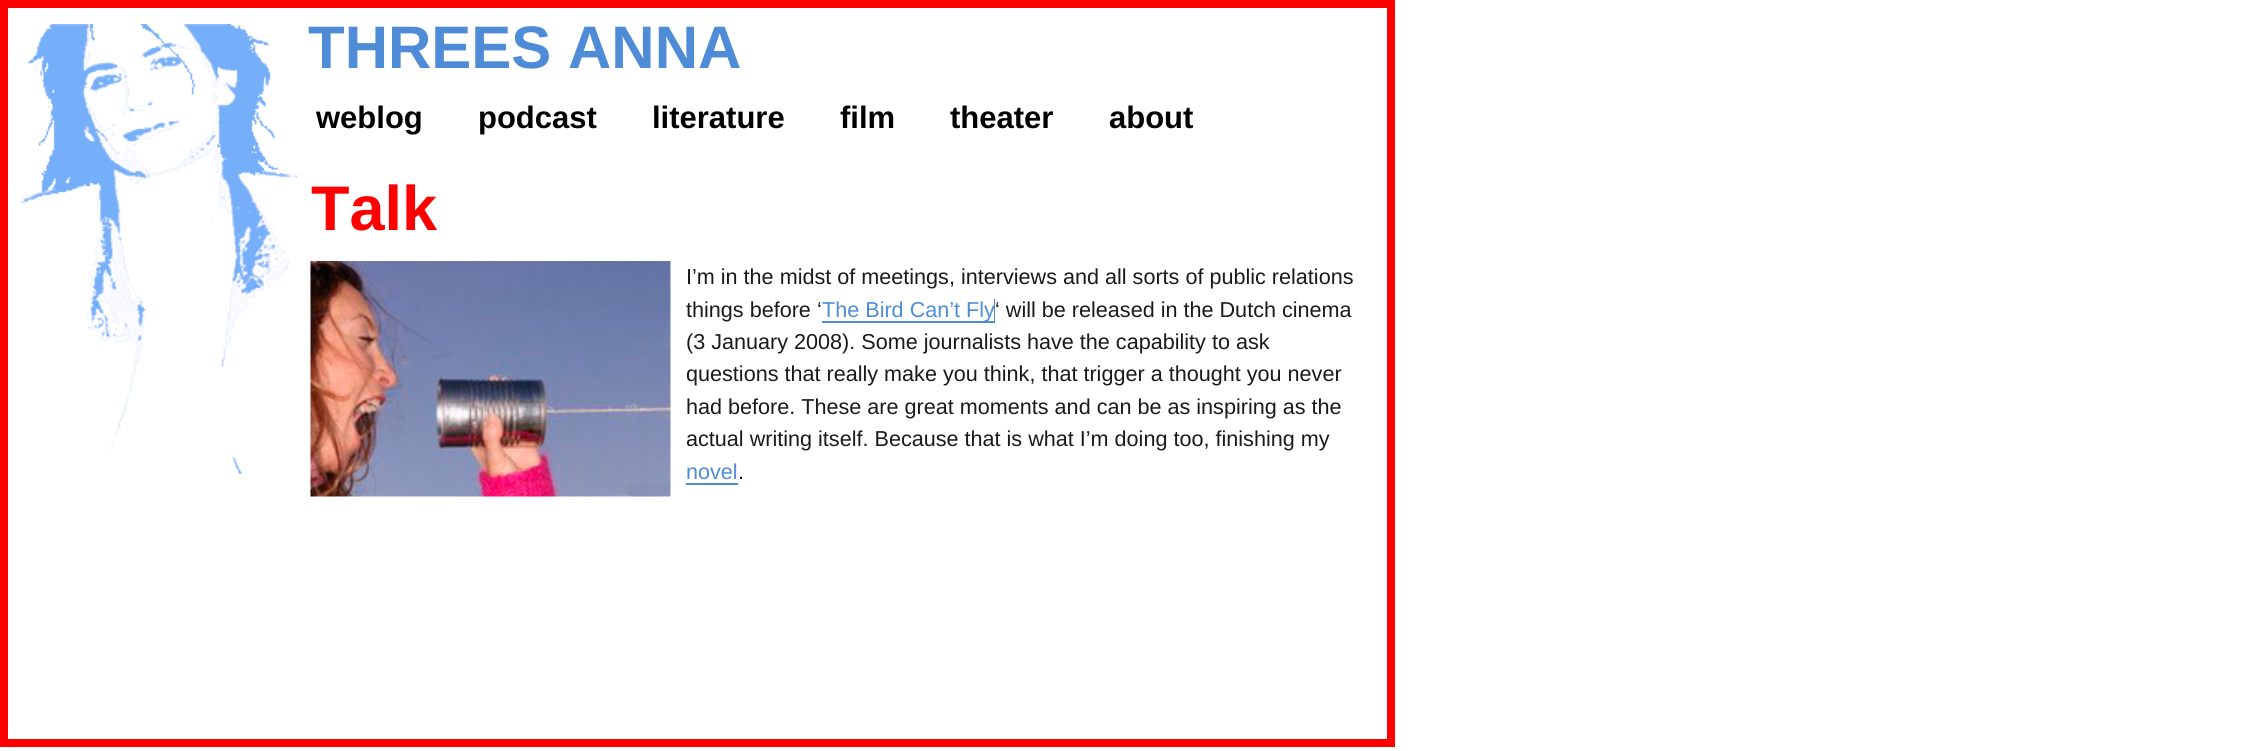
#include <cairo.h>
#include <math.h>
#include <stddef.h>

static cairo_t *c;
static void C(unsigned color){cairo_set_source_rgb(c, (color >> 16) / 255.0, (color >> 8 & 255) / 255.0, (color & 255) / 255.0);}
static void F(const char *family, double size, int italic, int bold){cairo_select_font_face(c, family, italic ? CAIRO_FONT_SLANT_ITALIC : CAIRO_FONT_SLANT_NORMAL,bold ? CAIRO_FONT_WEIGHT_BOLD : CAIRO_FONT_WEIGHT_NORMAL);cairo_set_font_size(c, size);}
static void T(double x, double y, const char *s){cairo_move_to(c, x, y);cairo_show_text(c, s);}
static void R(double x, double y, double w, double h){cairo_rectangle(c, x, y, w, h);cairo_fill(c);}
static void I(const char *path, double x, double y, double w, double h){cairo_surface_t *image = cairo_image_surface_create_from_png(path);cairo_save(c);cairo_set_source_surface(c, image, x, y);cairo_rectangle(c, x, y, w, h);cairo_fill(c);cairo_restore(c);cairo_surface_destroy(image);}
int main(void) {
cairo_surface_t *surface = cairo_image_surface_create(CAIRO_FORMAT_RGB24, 2250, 751);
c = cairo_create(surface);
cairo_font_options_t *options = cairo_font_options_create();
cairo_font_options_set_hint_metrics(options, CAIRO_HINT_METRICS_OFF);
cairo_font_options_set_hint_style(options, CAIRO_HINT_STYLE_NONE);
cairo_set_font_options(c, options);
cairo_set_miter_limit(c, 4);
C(0xffffff);
cairo_paint(c);
cairo_rectangle(c,4,4,1387,739);
C(0xff0000);
cairo_set_line_width(c,8);
cairo_stroke(c);
F("Liberation Sans",60,0,1);
C(0x4e8cd8);
T(308,68,"THREES ANNA");
F("Liberation Sans",31,0,1);
C(0x000000);
T(316,128,"weblog");
T(478,128,"podcast");
T(652,128,"literature");
T(840,128,"film");
T(950,128,"theater");
T(1109,128,"about");
I("1.png",21,24,276,450);
F("Liberation Sans",63,0,1);
C(0xff0000);
T(311,230,"Talk");
I("2.png",310,261,361,236);
F("Liberation Sans",21.6,0,0);
C(0x1a1a1a);
T(686,284,"I’m in the midst of meetings, interviews and all sorts of public relations");
T(686,317,"things before ‘");
C(0x4e8cd8);
cairo_new_path(c);
cairo_move_to(c,822,321);
cairo_line_to(c,822,323);
cairo_line_to(c,995,323);
cairo_line_to(c,995,299);
cairo_line_to(c,994,299);
cairo_line_to(c,994,321);
cairo_close_path(c);
cairo_fill(c);
T(822,317,"The Bird Can’t Fly");
C(0x1a1a1a);
T(995,317,"‘ will be released in the Dutch cinema");
T(686,349,"(3 January 2008). Some journalists have the capability to ask");
T(686,381,"questions that really make you think, that trigger a thought you never");
T(686,414,"had before. These are great moments and can be as inspiring as the");
T(686,446,"actual writing itself. Because that is what I’m doing too, finishing my");
C(0x4e8cd8);
T(686,479,"novel");
R(686,483,52,2);
C(0x1a1a1a);
T(738,479,".");
cairo_surface_write_to_png(surface, "o.png");
cairo_font_options_destroy(options);
cairo_destroy(c);
cairo_surface_destroy(surface);
return 0;
}
